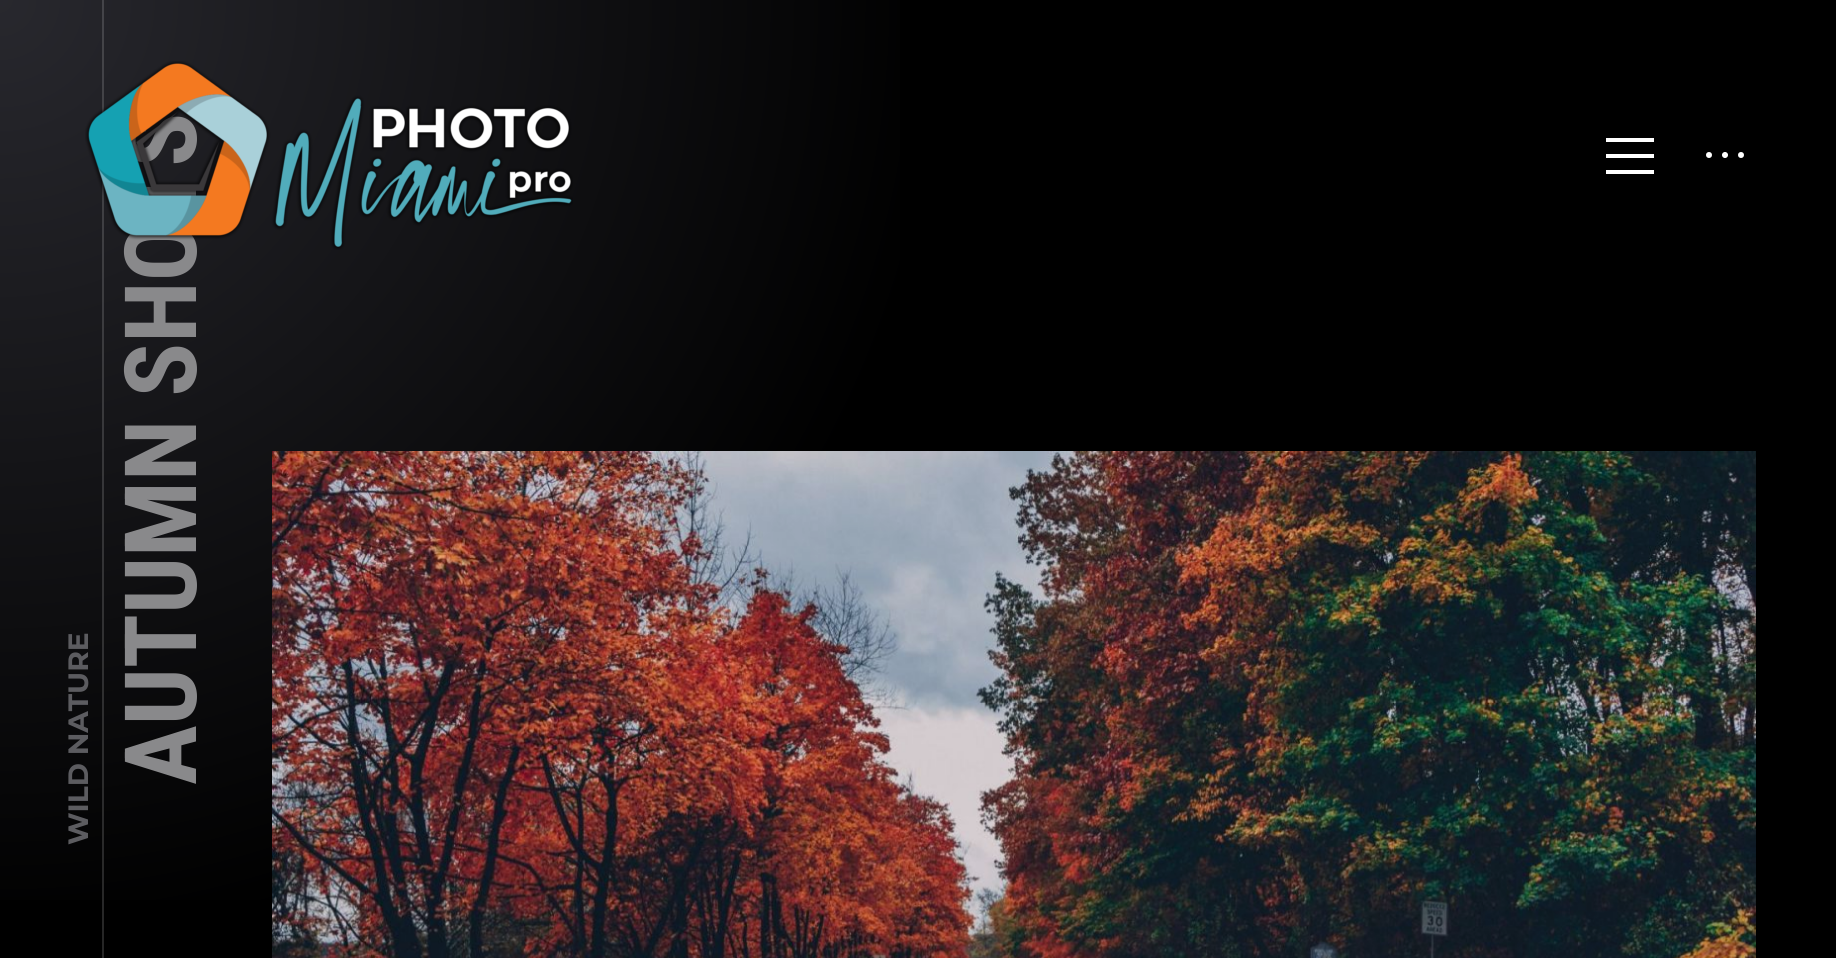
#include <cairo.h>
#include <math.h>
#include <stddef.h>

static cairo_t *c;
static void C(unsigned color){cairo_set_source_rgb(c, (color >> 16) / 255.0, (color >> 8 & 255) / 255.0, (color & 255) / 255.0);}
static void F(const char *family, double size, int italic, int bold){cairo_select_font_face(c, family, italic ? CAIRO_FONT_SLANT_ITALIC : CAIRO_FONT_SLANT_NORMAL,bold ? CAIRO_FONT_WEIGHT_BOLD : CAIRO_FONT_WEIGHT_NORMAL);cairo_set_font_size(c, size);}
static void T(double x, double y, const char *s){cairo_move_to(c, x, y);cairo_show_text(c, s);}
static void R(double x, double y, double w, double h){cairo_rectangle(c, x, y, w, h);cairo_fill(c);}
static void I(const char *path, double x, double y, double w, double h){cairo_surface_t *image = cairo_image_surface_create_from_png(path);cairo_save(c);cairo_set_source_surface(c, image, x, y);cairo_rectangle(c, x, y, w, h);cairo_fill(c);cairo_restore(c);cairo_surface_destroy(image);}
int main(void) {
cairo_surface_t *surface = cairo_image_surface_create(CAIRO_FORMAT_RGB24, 1836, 958);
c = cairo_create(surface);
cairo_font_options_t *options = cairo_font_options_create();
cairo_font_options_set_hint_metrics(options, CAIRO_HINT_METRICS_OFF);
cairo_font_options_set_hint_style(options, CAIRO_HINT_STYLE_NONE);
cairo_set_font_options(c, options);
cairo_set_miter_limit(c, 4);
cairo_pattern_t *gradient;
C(0x000000);
cairo_paint(c);
gradient = cairo_pattern_create_radial(0,0,0,0,0,1355);
cairo_pattern_add_color_stop_rgba(gradient,0,0.157,0.157,0.18,1);
cairo_pattern_add_color_stop_rgba(gradient,.7,0,0,0,1);
cairo_set_source(c,gradient);
cairo_pattern_destroy(gradient);
R(0,0,900,900);
gradient = cairo_pattern_create_radial(0,0,0,0,0,1355);
cairo_pattern_add_color_stop_rgba(gradient,0,0.282,0.282,0.302,1);
cairo_pattern_add_color_stop_rgba(gradient,.7,0.149,0.149,0.149,1);
cairo_set_source(c,gradient);
cairo_pattern_destroy(gradient);
R(102,0,2,958);
F("Roboto Condensed",100,0,1);
C(0x89898b);
cairo_save(c);
cairo_translate(c,196,785);
cairo_rotate(c,-90 * M_PI / 180);
T(0,0,"AUTUMN SHOTS");
cairo_restore(c);
I("1.png",85,61,488,189);
C(0xffffff);
cairo_new_path(c);
cairo_move_to(c,1606,138);
cairo_line_to(c,1654,138);
cairo_line_to(c,1654,142);
cairo_line_to(c,1606,142);
cairo_close_path(c);
cairo_move_to(c,1606,154);
cairo_line_to(c,1654,154);
cairo_line_to(c,1654,158);
cairo_line_to(c,1606,158);
cairo_close_path(c);
cairo_move_to(c,1606,170);
cairo_line_to(c,1654,170);
cairo_line_to(c,1654,174);
cairo_line_to(c,1606,174);
cairo_close_path(c);
cairo_fill(c);
cairo_arc(c,1709,155,3,0,2 * M_PI);
cairo_fill(c);
cairo_arc(c,1725,155,3,0,2 * M_PI);
cairo_fill(c);
cairo_new_path(c);
cairo_move_to(c,1722,155);
cairo_line_to(c,1725,152);
cairo_line_to(c,1728,155);
cairo_line_to(c,1725,158);
cairo_close_path(c);
cairo_fill(c);
cairo_arc(c,1741,155,3,0,2 * M_PI);
cairo_fill(c);
F("Montserrat",28,0,1);
C(0x5c5c60);
cairo_save(c);
cairo_translate(c,88,845);
cairo_rotate(c,-90 * M_PI / 180);
T(0,0,"WILD NATURE");
cairo_restore(c);
I("2.png",272,451,1484,507);
cairo_surface_write_to_png(surface, "o.png");
cairo_font_options_destroy(options);
cairo_destroy(c);
cairo_surface_destroy(surface);
return 0;
}
